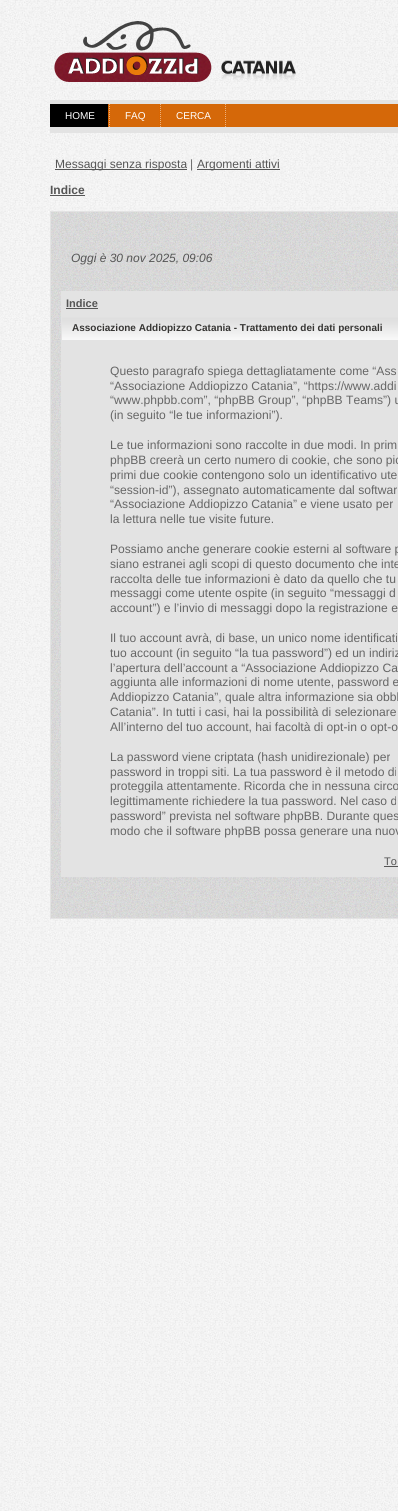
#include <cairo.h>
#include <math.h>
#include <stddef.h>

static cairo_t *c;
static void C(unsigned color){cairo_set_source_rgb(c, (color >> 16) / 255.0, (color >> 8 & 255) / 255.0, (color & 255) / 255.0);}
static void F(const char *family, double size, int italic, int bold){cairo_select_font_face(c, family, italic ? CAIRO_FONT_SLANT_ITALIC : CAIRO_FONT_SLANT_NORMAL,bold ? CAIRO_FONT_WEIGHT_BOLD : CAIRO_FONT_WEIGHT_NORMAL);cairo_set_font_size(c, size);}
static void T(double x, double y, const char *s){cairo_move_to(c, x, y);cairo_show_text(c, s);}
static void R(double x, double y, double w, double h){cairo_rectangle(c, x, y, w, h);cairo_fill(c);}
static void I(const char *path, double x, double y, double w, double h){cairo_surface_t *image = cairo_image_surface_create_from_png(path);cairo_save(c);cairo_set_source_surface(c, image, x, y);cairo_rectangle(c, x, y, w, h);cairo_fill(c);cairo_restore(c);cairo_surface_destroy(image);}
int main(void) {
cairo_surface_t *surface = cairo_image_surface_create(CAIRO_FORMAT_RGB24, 398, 1511);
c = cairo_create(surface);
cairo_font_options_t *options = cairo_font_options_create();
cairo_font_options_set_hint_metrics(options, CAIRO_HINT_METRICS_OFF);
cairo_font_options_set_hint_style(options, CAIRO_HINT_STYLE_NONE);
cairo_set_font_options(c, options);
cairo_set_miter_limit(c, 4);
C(0xffffff);
cairo_paint(c);
I("1.png",0,0,398,1511);
I("2.png",54,21,242,61);
C(0xd56809);
R(110,104,288,23);
C(0xe3e3e3);
R(50,100,348,4);
R(50,127,348,6);
C(0x000000);
R(50,104,58,23);
I("3.png",108,104,2,23);
F("Liberation Sans",10,0,0);
C(0xffffff);
T(65,119,"HOME");
I("3.png",159,104,2,23);
T(125,119,"FAQ");
I("3.png",224,104,2,23);
T(176,119,"CERCA");
C(0x555555);
R(55,169,132,1);
F("Liberation Sans",12,0,0);
T(55,168,"Messaggi senza risposta");
C(0x666666);
T(190,168,"|");
C(0x555555);
R(197,169,83,1);
T(197,168,"Argomenti attivi");
F("Liberation Sans",12,0,1);
T(50,194,"Indice");
R(50,195,35,1);
I("4.png",51,212,347,706);
cairo_rectangle(c,50.5,211.5,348,707);
C(0xe3e3e3);
cairo_set_line_width(c,1);
cairo_stroke(c);
F("Liberation Sans",12,1,0);
C(0x555555);
T(71,262,"Oggi è 30 nov 2025, 09:06");
C(0xe3e3e3);
R(61,291,337,586);
F("Liberation Sans",11,0,1);
C(0x555555);
T(66,307,"Indice");
R(66,308,32,1);
I("5.png",62,317,336,23);
F("Liberation Sans",10,0,1);
C(0x363533);
T(72,331,"Associazione Addiopizzo Catania - Trattamento dei dati personali");
F("Liberation Sans",12.1,0,0);
C(0x666666);
T(110,375,"Questo paragrafo spiega dettagliatamente come “Ass");
T(110,390,"“Associazione Addiopizzo Catania”, “https://www.addi");
T(110,404,"“www.phpbb.com”, “phpBB Group”, “phpBB Teams”) u");
T(110,419,"(in seguito “le tue informazioni”).");
T(110,449,"Le tue informazioni sono raccolte in due modi. In prim");
T(110,464,"phpBB creerà un certo numero di cookie, che sono pic");
T(110,479,"primi due cookie contengono solo un identificativo ute");
T(110,494,"“session-id”), assegnato automaticamente dal softwar");
T(110,508,"“Associazione Addiopizzo Catania” e viene usato per");
T(110,523,"la lettura nelle tue visite future.");
T(110,553,"Possiamo anche generare cookie esterni al software p");
T(110,568,"siano estranei agli scopi di questo documento che inte");
T(110,583,"raccolta delle tue informazioni è dato da quello che tu");
T(110,597,"messaggi come utente ospite (in seguito “messaggi d");
T(110,612,"account”) e l’invio di messaggi dopo la registrazione e");
T(110,642,"Il tuo account avrà, di base, un unico nome identificati");
T(110,657,"tuo account (in seguito “la tua password”) ed un indiriz");
T(110,672,"l’apertura dell’account a “Associazione Addiopizzo Ca");
T(110,686,"aggiunta alle informazioni di nome utente, password e");
T(110,701,"Addiopizzo Catania”, quale altra informazione sia obbl");
T(110,716,"Catania”. In tutti i casi, hai la possibilità di selezionare");
T(110,731,"All’interno del tuo account, hai facoltà di opt-in o opt-o");
T(110,761,"La password viene criptata (hash unidirezionale) per");
T(110,776,"password in troppi siti. La tua password è il metodo di");
T(110,790,"proteggila attentamente. Ricorda che in nessuna circo");
T(110,805,"legittimamente richiedere la tua password. Nel caso d");
T(110,820,"password” prevista nel software phpBB. Durante ques");
T(110,835,"modo che il software phpBB possa generare una nuov");
F("Liberation Sans",11,0,0);
C(0x555555);
T(384,865,"To");
R(384,866,14,1);
cairo_surface_write_to_png(surface, "o.png");
cairo_font_options_destroy(options);
cairo_destroy(c);
cairo_surface_destroy(surface);
return 0;
}
